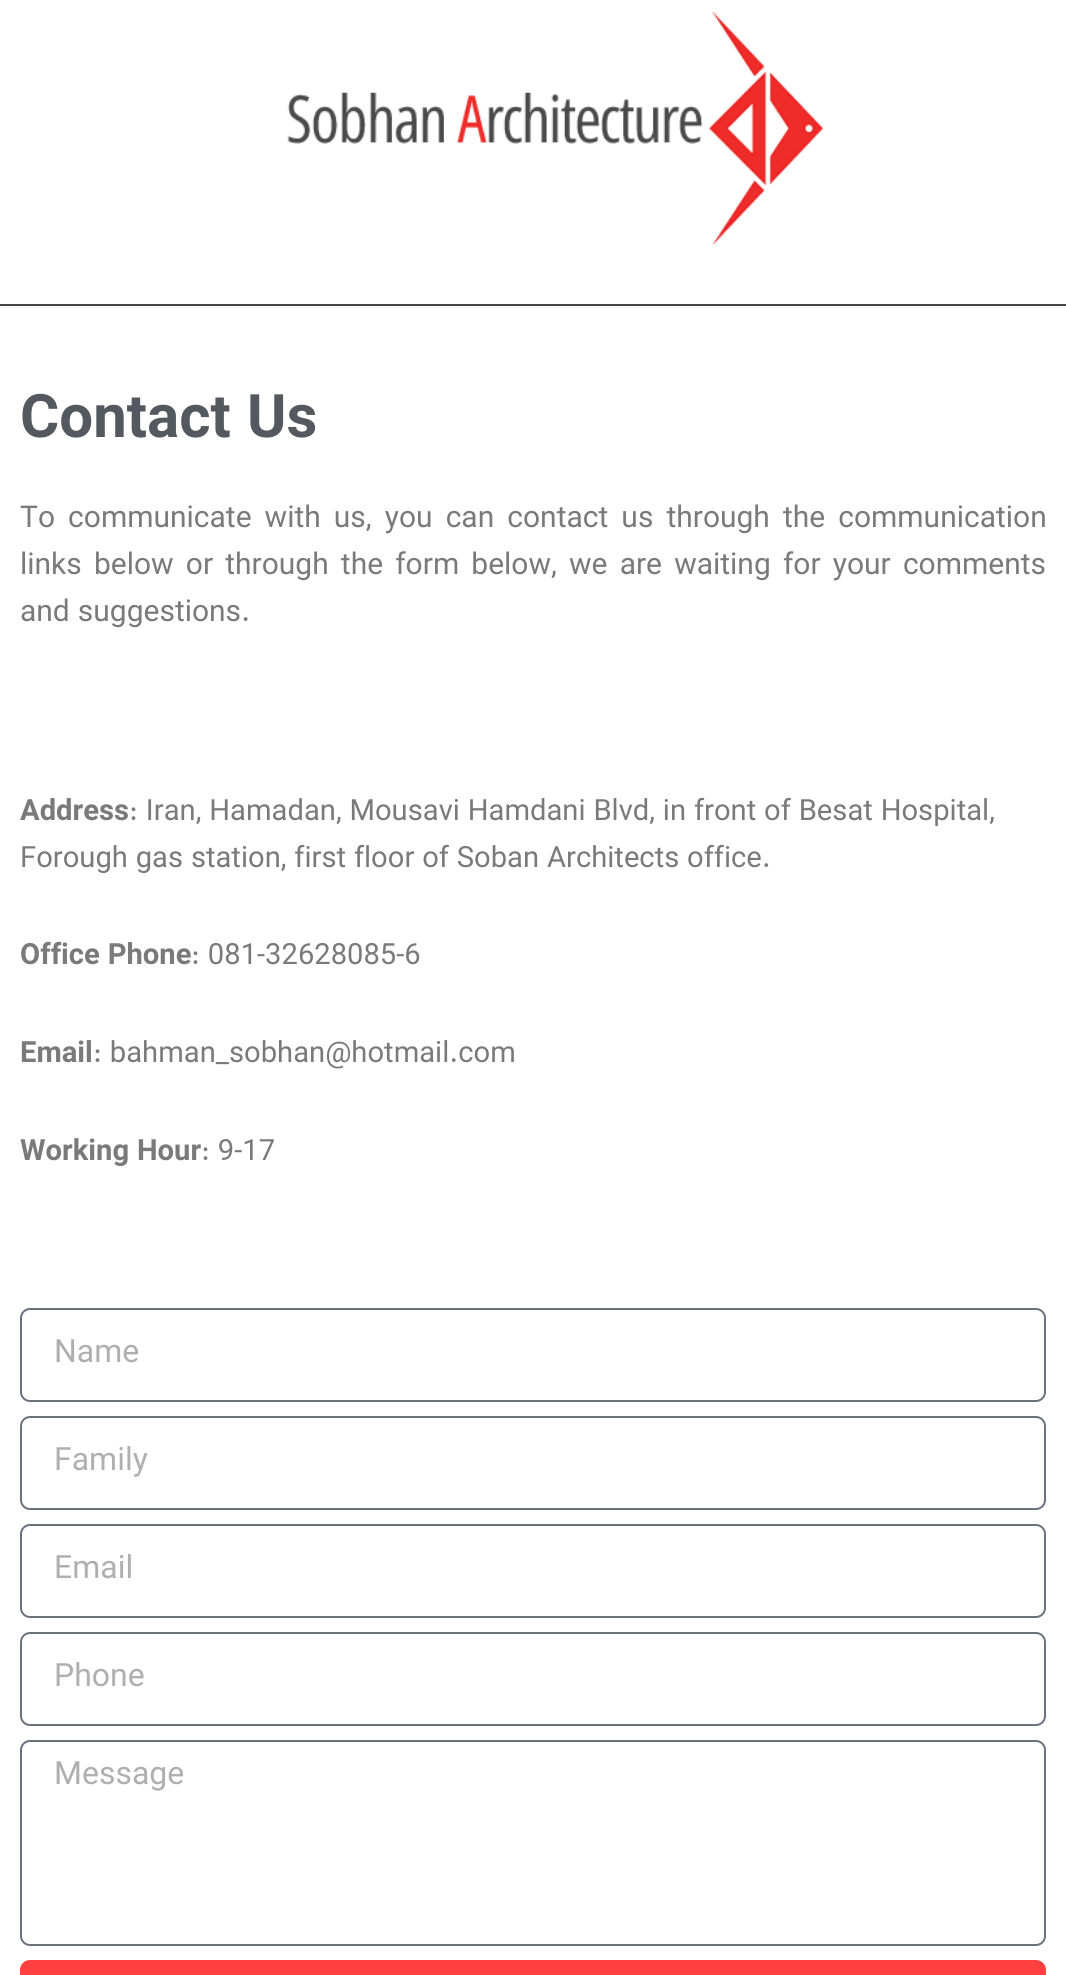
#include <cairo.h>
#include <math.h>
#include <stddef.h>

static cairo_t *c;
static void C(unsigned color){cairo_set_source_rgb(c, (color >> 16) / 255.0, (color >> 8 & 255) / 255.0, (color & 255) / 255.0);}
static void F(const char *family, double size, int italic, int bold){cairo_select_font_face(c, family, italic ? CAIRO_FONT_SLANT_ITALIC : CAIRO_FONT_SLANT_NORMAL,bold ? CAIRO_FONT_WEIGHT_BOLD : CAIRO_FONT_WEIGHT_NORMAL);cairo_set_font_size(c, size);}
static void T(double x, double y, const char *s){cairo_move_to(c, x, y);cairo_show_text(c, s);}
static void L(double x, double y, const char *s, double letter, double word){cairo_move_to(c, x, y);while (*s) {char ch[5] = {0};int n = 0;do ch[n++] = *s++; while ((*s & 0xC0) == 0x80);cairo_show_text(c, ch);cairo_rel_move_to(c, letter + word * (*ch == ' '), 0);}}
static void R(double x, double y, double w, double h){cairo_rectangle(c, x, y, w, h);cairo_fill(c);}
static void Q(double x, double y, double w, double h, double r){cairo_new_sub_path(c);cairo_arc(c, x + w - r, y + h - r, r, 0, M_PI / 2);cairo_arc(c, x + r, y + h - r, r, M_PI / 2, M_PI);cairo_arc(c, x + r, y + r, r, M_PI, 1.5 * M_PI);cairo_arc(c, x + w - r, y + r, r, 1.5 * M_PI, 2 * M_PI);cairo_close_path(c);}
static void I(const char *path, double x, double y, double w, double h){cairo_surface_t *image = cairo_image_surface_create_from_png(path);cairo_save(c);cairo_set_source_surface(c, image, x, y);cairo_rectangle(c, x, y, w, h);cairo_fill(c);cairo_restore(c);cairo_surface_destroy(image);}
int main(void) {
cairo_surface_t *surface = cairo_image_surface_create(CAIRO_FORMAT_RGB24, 1066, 1975);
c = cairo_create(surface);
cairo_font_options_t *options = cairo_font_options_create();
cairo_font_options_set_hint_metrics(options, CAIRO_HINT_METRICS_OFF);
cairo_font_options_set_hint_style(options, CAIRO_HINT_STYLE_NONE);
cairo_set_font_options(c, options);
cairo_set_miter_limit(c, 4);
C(0xffffff);
cairo_paint(c);
C(0x454545);
R(0,304,1066,2);
I("1.png",287,12,537,232);
F("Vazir",60,0,1);
C(0x54595f);
T(20,437,"Contact Us");
F("Vazir",30,0,0);
C(0x7a7a7a);
L(20,527,"To communicate with us, you can contact us through the communication",0,5);
L(20,574,"links below or through the form below, we are waiting for your comments",0,4.1);
T(20,621,"and suggestions.");
F("Vazir",29.2,0,1);
T(20,820,"Address");
F("Vazir",29.2,0,0);
T(129,820,": Iran, Hamadan, Mousavi Hamdani Blvd, in front of Besat Hospital,");
T(20,867,"Forough gas station, first floor of Soban Architects office.");
F("Vazir",29.2,0,1);
T(20,964,"Office Phone");
F("Vazir",29.2,0,0);
T(191,964,": 081-32628085-6");
F("Vazir",29.2,0,1);
T(20,1062,"Email");
F("Vazir",29.2,0,0);
T(93,1062,": bahman_sobhan@hotmail.com");
F("Vazir",29.2,0,1);
T(20,1160,"Working Hour");
F("Vazir",29.2,0,0);
T(201,1160,": 9-17");
Q(21,1309,1024,92,9);
C(0x69727d);
cairo_stroke(c);
F("Vazir",32,0,0);
C(0xafafaf);
T(54,1362,"Name");
Q(21,1417,1024,92,9);
C(0x69727d);
cairo_stroke(c);
C(0xafafaf);
T(54,1470,"Family");
Q(21,1525,1024,92,9);
C(0x69727d);
cairo_stroke(c);
C(0xafafaf);
T(54,1578,"Email");
Q(21,1633,1024,92,9);
C(0x69727d);
cairo_stroke(c);
C(0xafafaf);
T(54,1686,"Phone");
Q(21,1741,1024,204,9);
C(0x69727d);
cairo_stroke(c);
C(0xafafaf);
T(54,1784,"Message");
C(0xff4040);
Q(20,1960,1026,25,10);
cairo_fill(c);
cairo_surface_write_to_png(surface, "o.png");
cairo_font_options_destroy(options);
cairo_destroy(c);
cairo_surface_destroy(surface);
return 0;
}
